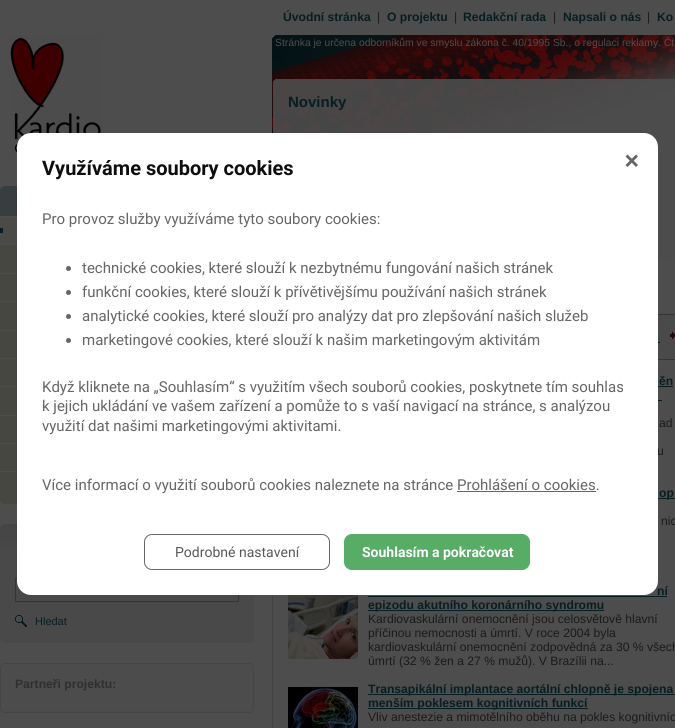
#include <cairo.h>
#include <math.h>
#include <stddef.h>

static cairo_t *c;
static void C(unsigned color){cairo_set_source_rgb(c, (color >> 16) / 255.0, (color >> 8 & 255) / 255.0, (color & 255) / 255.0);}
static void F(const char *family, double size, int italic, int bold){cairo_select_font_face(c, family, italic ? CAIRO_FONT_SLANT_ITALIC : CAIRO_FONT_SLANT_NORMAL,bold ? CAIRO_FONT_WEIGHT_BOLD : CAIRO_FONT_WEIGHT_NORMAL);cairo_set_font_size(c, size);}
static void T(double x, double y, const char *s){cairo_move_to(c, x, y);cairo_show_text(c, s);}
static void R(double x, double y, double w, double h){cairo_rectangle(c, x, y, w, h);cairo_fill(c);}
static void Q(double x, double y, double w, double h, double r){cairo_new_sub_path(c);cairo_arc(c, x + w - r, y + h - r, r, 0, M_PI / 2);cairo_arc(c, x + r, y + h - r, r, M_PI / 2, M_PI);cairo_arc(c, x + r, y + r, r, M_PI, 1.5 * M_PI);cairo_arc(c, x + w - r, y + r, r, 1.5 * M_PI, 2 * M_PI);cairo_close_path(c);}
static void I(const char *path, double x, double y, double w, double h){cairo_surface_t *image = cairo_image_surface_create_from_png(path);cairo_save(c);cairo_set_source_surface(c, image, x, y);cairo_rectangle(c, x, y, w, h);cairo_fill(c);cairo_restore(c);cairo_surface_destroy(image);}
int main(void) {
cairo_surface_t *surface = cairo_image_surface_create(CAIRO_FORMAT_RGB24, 675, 728);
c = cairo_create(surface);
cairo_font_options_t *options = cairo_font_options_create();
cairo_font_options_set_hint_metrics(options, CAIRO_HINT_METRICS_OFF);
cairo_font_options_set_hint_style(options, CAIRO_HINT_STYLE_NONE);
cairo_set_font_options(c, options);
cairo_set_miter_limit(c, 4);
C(0x4d4d4d);
cairo_paint(c);
F("Liberation Sans",12.15,0,1);
C(0x061e23);
T(283,21,"Úvodní stránka");
F("Liberation Sans",12.15,0,0);
C(0x1a1a1a);
T(377,21,"|");
F("Liberation Sans",12.15,0,1);
C(0x061e23);
T(387,21,"O projektu");
F("Liberation Sans",12.15,0,0);
C(0x1a1a1a);
T(454,21,"|");
F("Liberation Sans",12.15,0,1);
C(0x061e23);
T(463,21,"Redakční rada");
F("Liberation Sans",12.15,0,0);
C(0x1a1a1a);
T(553,21,"|");
F("Liberation Sans",12.15,0,1);
C(0x061e23);
T(563,21,"Napsali o nás");
F("Liberation Sans",12.15,0,0);
C(0x1a1a1a);
T(647,21,"|");
F("Liberation Sans",12.15,0,1);
C(0x061e23);
T(657,21,"Ko");
C(0x424242);
R(272,595,1,133);
I("1.png",10,37,91,117);
I("2.png",0,186,17,30);
C(0x454740);
R(0,245,17,256);
I("3.png",0,501,17,3);
C(0x4a4a47);
R(0,217,17,27);
C(0x061e23);
R(0,228,3,5);
C(0x4d4d4d);
R(0,273,17,1);
R(0,301,17,1);
R(0,330,17,1);
R(0,358,17,1);
R(0,386,17,1);
R(0,415,17,1);
R(0,443,17,1);
R(0,471,17,1);
C(0x494949);
R(0,547,254,93);
I("4.png",0,524,17,23);
cairo_rectangle(c,15.5,578.5,223,23);
C(0x2e3739);
cairo_set_line_width(c,1);
cairo_stroke(c);
I("5.png",15,615,12,12);
F("Liberation Sans",11,0,0);
C(0x061e23);
T(35,625,"Hledat");
I("6.png",0,640,254,3);
I("7.png",0,663,254,40);
F("Liberation Sans",12.15,0,1);
C(0x2f2f2f);
T(15,688,"Partneři projektu:");
C(0x454545);
R(253,703,1,5);
R(0,703,1,5);
I("8.png",0,708,254,5);
I("9.png",272,35,403,224);
F("Liberation Sans",10.35,0,0);
C(0x4d4d4d);
T(275,46,"Stránka je určena odborníkům ve smyslu zákona č. 40/1995 Sb., o regulaci reklamy. Čt");
F("Liberation Sans",15,0,1);
C(0x061e23);
T(288,107,"Novinky");
C(0x353535);
R(658,314,17,46);
C(0x4a4a4a);
R(658,315,17,44);
I("10.png",670,332,5,7);
C(0x061e23);
R(658,342,2,1);
F("Liberation Sans",12.15,0,1);
T(659,385,"ěn");
R(658,386,15,1);
R(658,400,4,1);
F("Liberation Sans",12.15,0,0);
C(0x1a1a1a);
T(659,427,"ad");
T(657,455,"u");
C(0x061e23);
R(658,498,17,1);
F("Liberation Sans",12.15,0,1);
T(659,497,"op");
F("Liberation Sans",12.15,0,0);
C(0x1a1a1a);
T(661,525,"nic");
I("11.png",288,595,70,64);
F("Liberation Sans",12.15,0,1);
C(0x061e23);
T(657,595,"ní");
R(368,596,299,1);
R(368,610,236,1);
T(368,609,"epizodu akutního koronárního syndromu");
F("Liberation Sans",12.15,0,0);
C(0x1a1a1a);
T(368,623,"Kardiovaskulární onemocnění jsou celosvětově hlavní");
T(368,637,"příčinou nemocnosti a úmrtí. V roce 2004 byla");
T(368,651,"kardiovaskulární onemocnění zodpovědná za 30 % všech");
T(368,665,"úmrtí (32 % žen a 27 % mužů). V Brazílii na...");
I("12.png",288,687,70,41);
C(0x061e23);
R(368,694,307,1);
F("Liberation Sans",12.15,0,1);
T(368,693,"Transapikální implantace aortální chlopně je spojena");
R(368,708,220,1);
T(368,707,"menším poklesem kognitivních funkcí");
F("Liberation Sans",12.15,0,0);
C(0x1a1a1a);
T(368,721,"Vliv anestezie a mimotělního oběhu na pokles kognitivníc");
C(0xffffff);
Q(17,133,641,462,14);
cairo_fill(c);
F("Roboto",20,0,1);
C(0x0e0e0e);
T(42,175,"Využíváme soubory cookies");
C(0x666666);
cairo_new_path(c);
cairo_move_to(c,636,154.5);
cairo_line_to(c,638,156.5);
cairo_line_to(c,627.5,167);
cairo_line_to(c,625.5,165);
cairo_close_path(c);
cairo_fill(c);
cairo_new_path(c);
cairo_move_to(c,625.5,156.5);
cairo_line_to(c,627.5,154.5);
cairo_line_to(c,638,165);
cairo_line_to(c,636,167);
cairo_close_path(c);
cairo_fill(c);
F("Roboto",15,0,0);
T(42,224,"Pro provoz služby využíváme tyto soubory cookies:");
cairo_new_path(c);
cairo_arc(c,68.5,268.5,2.5,0,2 * M_PI);
cairo_fill(c);
T(82,273,"technické cookies, které slouží k nezbytnému fungování našich stránek");
cairo_new_path(c);
cairo_arc(c,68.5,292.5,2.5,0,2 * M_PI);
cairo_fill(c);
T(82,297,"funkční cookies, které slouží k přívětivějšímu používání našich stránek");
cairo_new_path(c);
cairo_arc(c,68.5,316.5,2.5,0,2 * M_PI);
cairo_fill(c);
T(82,321,"analytické cookies, které slouží pro analýzy dat pro zlepšování našich služeb");
cairo_new_path(c);
cairo_arc(c,68.5,340.5,2.5,0,2 * M_PI);
cairo_fill(c);
T(82,345,"marketingové cookies, které slouží k našim marketingovým aktivitám");
T(42,392,"Když kliknete na „Souhlasím“ s využitím všech souborů cookies, poskytnete tím souhlas");
T(42,411,"k jejich ukládání ve vašem zařízení a pomůže to s vaší navigací na stránce, s analýzou");
T(42,431,"využití dat našimi marketingovými aktivitami.");
T(42,490,"Více informací o využití souborů cookies naleznete na stránce Prohlášení o cookies.");
R(457,491,139,1);
Q(144.5,534.5,185,35,7.5);
cairo_stroke(c);
F("Roboto",14,0,0);
C(0x585858);
T(175,557,"Podrobné nastavení");
C(0x58ad66);
Q(344.5,534.5,185,35,7.5);
cairo_fill_preserve(c);
cairo_stroke(c);
F("Roboto",14,0,1);
C(0xffffff);
T(362,557,"Souhlasím a pokračovat");
cairo_surface_write_to_png(surface, "o.png");
cairo_font_options_destroy(options);
cairo_destroy(c);
cairo_surface_destroy(surface);
return 0;
}
